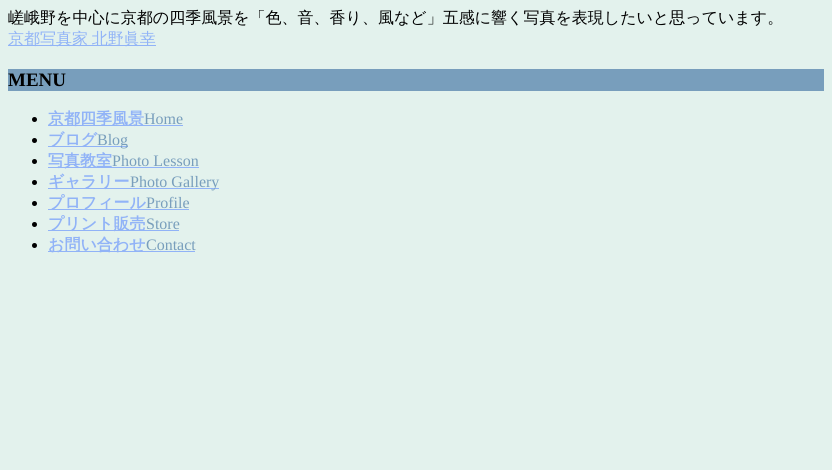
#include <cairo.h>
#include <math.h>
#include <stddef.h>

static cairo_t *c;
static void C(unsigned color){cairo_set_source_rgb(c, (color >> 16) / 255.0, (color >> 8 & 255) / 255.0, (color & 255) / 255.0);}
static void F(const char *family, double size, int italic, int bold){cairo_select_font_face(c, family, italic ? CAIRO_FONT_SLANT_ITALIC : CAIRO_FONT_SLANT_NORMAL,bold ? CAIRO_FONT_WEIGHT_BOLD : CAIRO_FONT_WEIGHT_NORMAL);cairo_set_font_size(c, size);}
static void T(double x, double y, const char *s){cairo_move_to(c, x, y);cairo_show_text(c, s);}
static void L(double x, double y, const char *s, double letter, double word){cairo_move_to(c, x, y);while (*s) {char ch[5] = {0};int n = 0;do ch[n++] = *s++; while ((*s & 0xC0) == 0x80);cairo_show_text(c, ch);cairo_rel_move_to(c, letter + word * (*ch == ' '), 0);}}
static void R(double x, double y, double w, double h){cairo_rectangle(c, x, y, w, h);cairo_fill(c);}
int main(void) {
cairo_surface_t *surface = cairo_image_surface_create(CAIRO_FORMAT_RGB24, 832, 470);
c = cairo_create(surface);
cairo_font_options_t *options = cairo_font_options_create();
cairo_font_options_set_hint_metrics(options, CAIRO_HINT_METRICS_OFF);
cairo_font_options_set_hint_style(options, CAIRO_HINT_STYLE_NONE);
cairo_set_font_options(c, options);
cairo_set_miter_limit(c, 4);
C(0xe3f2ed);
cairo_paint(c);
F("WenQuanYi Zen Hei Medium",16,0,0);
C(0x000000);
T(8,23,"嵯峨野を中心に京都の四季風景を「色、音、香り、風など」五感に響く写真を表現したいと思っています。");
C(0x91b3f7);
R(8,45,148,1);
L(8,44,"京都写真家 北野眞幸",0,-1);
C(0x789ebc);
R(8,69,816,22);
F("Liberation Serif",19,0,1);
C(0x000000);
T(8,86,"MENU");
cairo_new_path(c);
cairo_arc(c,34.5,119.5,2.5,0,2 * M_PI);
cairo_fill(c);
C(0x91b3f7);
R(48,125,135,1);
F("WenQuanYi Zen Hei",16,0,1);
T(48,124,"京都四季風景");
F("Liberation Serif",16,0,0);
C(0x789ebc);
T(144,124,"Home");
C(0x000000);
cairo_new_path(c);
cairo_arc(c,34.5,140.5,2.5,0,2 * M_PI);
cairo_fill(c);
C(0x91b3f7);
R(48,146,49,1);
F("WenQuanYi Zen Hei",16,0,1);
T(48,145,"ブログ");
R(97,146,31,1);
F("Liberation Serif",16,0,0);
C(0x789ebc);
T(97,145,"Blog");
C(0x000000);
cairo_new_path(c);
cairo_arc(c,34.5,161.5,2.5,0,2 * M_PI);
cairo_fill(c);
C(0x91b3f7);
R(48,167,151,1);
F("WenQuanYi Zen Hei",16,0,1);
T(48,166,"写真教室");
F("Liberation Serif",16,0,0);
C(0x789ebc);
T(112,166,"Photo Lesson");
C(0x000000);
cairo_new_path(c);
cairo_arc(c,34.5,182.5,2.5,0,2 * M_PI);
cairo_fill(c);
C(0x91b3f7);
R(48,188,171,1);
F("WenQuanYi Zen Hei",16,0,1);
T(48,187,"ギャラリー");
F("Liberation Serif",16,0,0);
C(0x789ebc);
T(130,187,"Photo Gallery");
C(0x000000);
cairo_new_path(c);
cairo_arc(c,34.5,203.5,2.5,0,2 * M_PI);
cairo_fill(c);
C(0x91b3f7);
R(48,209,141,1);
F("WenQuanYi Zen Hei",16,0,1);
T(48,208,"プロフィール");
F("Liberation Serif",16,0,0);
C(0x789ebc);
T(146,208,"Profile");
C(0x000000);
cairo_new_path(c);
cairo_arc(c,34.5,224.5,2.5,0,2 * M_PI);
cairo_fill(c);
C(0x91b3f7);
R(48,230,131,1);
F("WenQuanYi Zen Hei",16,0,1);
T(48,229,"プリント販売");
F("Liberation Serif",16,0,0);
C(0x789ebc);
T(146,229,"Store");
C(0x000000);
cairo_new_path(c);
cairo_arc(c,34.5,245.5,2.5,0,2 * M_PI);
cairo_fill(c);
C(0x91b3f7);
R(48,251,147,1);
F("WenQuanYi Zen Hei",16,0,1);
T(48,250,"お問い合わせ");
F("Liberation Serif",16,0,0);
C(0x789ebc);
T(146,250,"Contact");
cairo_surface_write_to_png(surface, "o.png");
cairo_font_options_destroy(options);
cairo_destroy(c);
cairo_surface_destroy(surface);
return 0;
}
